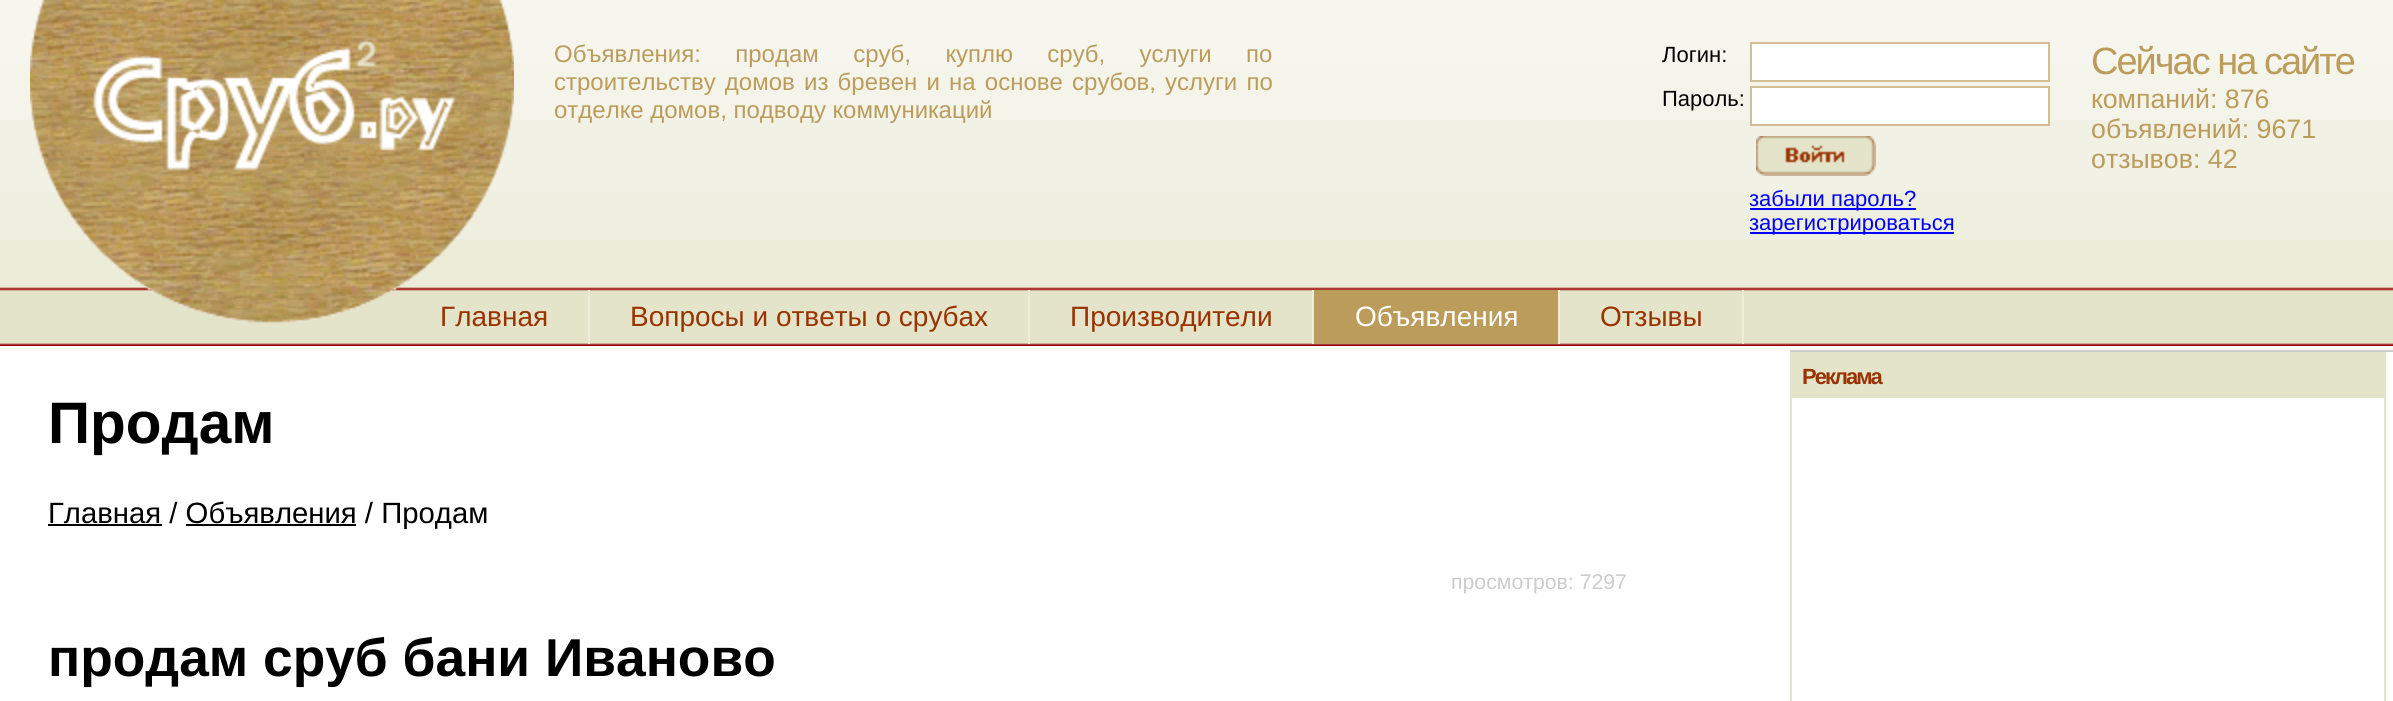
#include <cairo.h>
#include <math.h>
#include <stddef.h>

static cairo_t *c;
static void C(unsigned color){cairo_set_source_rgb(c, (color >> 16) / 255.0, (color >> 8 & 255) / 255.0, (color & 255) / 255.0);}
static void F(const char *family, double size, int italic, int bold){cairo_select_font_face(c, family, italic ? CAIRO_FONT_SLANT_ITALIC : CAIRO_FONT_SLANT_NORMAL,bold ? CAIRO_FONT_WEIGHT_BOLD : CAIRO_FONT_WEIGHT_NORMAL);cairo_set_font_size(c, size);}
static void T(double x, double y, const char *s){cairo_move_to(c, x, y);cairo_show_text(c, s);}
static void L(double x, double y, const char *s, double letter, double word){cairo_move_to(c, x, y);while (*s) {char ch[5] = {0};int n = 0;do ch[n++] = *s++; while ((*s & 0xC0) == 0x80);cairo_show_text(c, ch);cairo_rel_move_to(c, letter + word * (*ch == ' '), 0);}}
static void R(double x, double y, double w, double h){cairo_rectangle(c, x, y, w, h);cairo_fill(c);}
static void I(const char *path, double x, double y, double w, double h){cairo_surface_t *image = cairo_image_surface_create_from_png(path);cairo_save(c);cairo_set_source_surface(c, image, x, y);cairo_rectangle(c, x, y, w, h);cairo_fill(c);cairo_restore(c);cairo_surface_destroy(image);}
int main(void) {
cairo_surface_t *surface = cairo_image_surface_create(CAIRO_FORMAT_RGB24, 2393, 701);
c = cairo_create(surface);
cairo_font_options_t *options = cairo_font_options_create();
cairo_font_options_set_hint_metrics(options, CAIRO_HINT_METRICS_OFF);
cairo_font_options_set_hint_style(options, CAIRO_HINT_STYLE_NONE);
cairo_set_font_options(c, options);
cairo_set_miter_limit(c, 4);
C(0xffffff);
cairo_paint(c);
I("1.png",0,0,2393,346);
I("2.png",30,0,484,323);
F("Liberation Sans",24,0,0);
C(0xbb9c5b);
L(554,62,"Объявления: продам сруб, куплю сруб, услуги по",0,27.75);
L(554,90,"строительству домов из бревен и на основе срубов, услуги по",0,2.5);
T(554,118,"отделке домов, подводу коммуникаций");
F("Liberation Sans",22,0,0);
C(0x000000);
T(1662,62,"Логин:");
C(0xffffff);
cairo_rectangle(c,1751,43,298,38);
cairo_fill_preserve(c);
C(0xd2be93);
cairo_stroke(c);
C(0x000000);
T(1662,106,"Пароль:");
C(0xffffff);
cairo_rectangle(c,1751,87,298,38);
cairo_fill_preserve(c);
C(0xd2be93);
cairo_stroke(c);
I("3.png",1756,136,120,40);
C(0x0000ff);
R(1750,208,166,2);
T(1749,206,"забыли пароль?");
R(1750,232,204,2);
T(1749,230,"зарегистрироваться");
F("Liberation Sans",38,0,0);
C(0xbb9c5b);
L(2091,74,"Сейчас на сайте",-2,0);
F("Liberation Sans",26.75,0,0);
T(2091,108,"компаний: 876");
T(2091,138,"объявлений: 9671");
T(2091,168,"отзывов: 42");
C(0xebedd8);
R(588,290,2,54);
F("Liberation Sans",28,0,0);
C(0x993300);
T(440,326,"Главная");
C(0xebedd8);
R(1028,290,2,54);
C(0x993300);
T(630,326,"Вопросы и ответы о срубах");
C(0xebedd8);
R(1312,290,2,54);
C(0x993300);
T(1070,326,"Производители");
C(0xbb9c5b);
R(1314,290,244,54);
C(0xebedd8);
R(1558,290,2,54);
C(0xffffff);
T(1355,326,"Объявления");
C(0xebedd8);
R(1742,290,2,54);
C(0x993300);
T(1600,326,"Отзывы");
C(0xcccccc);
R(1790,350,603,2);
cairo_rectangle(c,1791,353,594,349);
C(0xe4e4cb);
cairo_stroke(c);
R(1792,354,592,44);
F("Liberation Sans",22,0,1);
C(0x993300);
L(1802,384,"Реклама",-2,0);
F("Liberation Sans",58.5,0,1);
C(0x000000);
T(48,443,"Продам");
R(48,524,114,2);
F("Liberation Sans",29.3,0,0);
T(48,523,"Главная / Объявления / Продам");
R(186,524,170,2);
F("Liberation Sans",21.25,0,0);
C(0xcccccc);
T(1451,589,"просмотров: 7297");
F("Liberation Sans",53.3,0,1);
C(0x000000);
T(48,676,"продам сруб бани Иваново");
cairo_surface_write_to_png(surface, "o.png");
cairo_font_options_destroy(options);
cairo_destroy(c);
cairo_surface_destroy(surface);
return 0;
}
